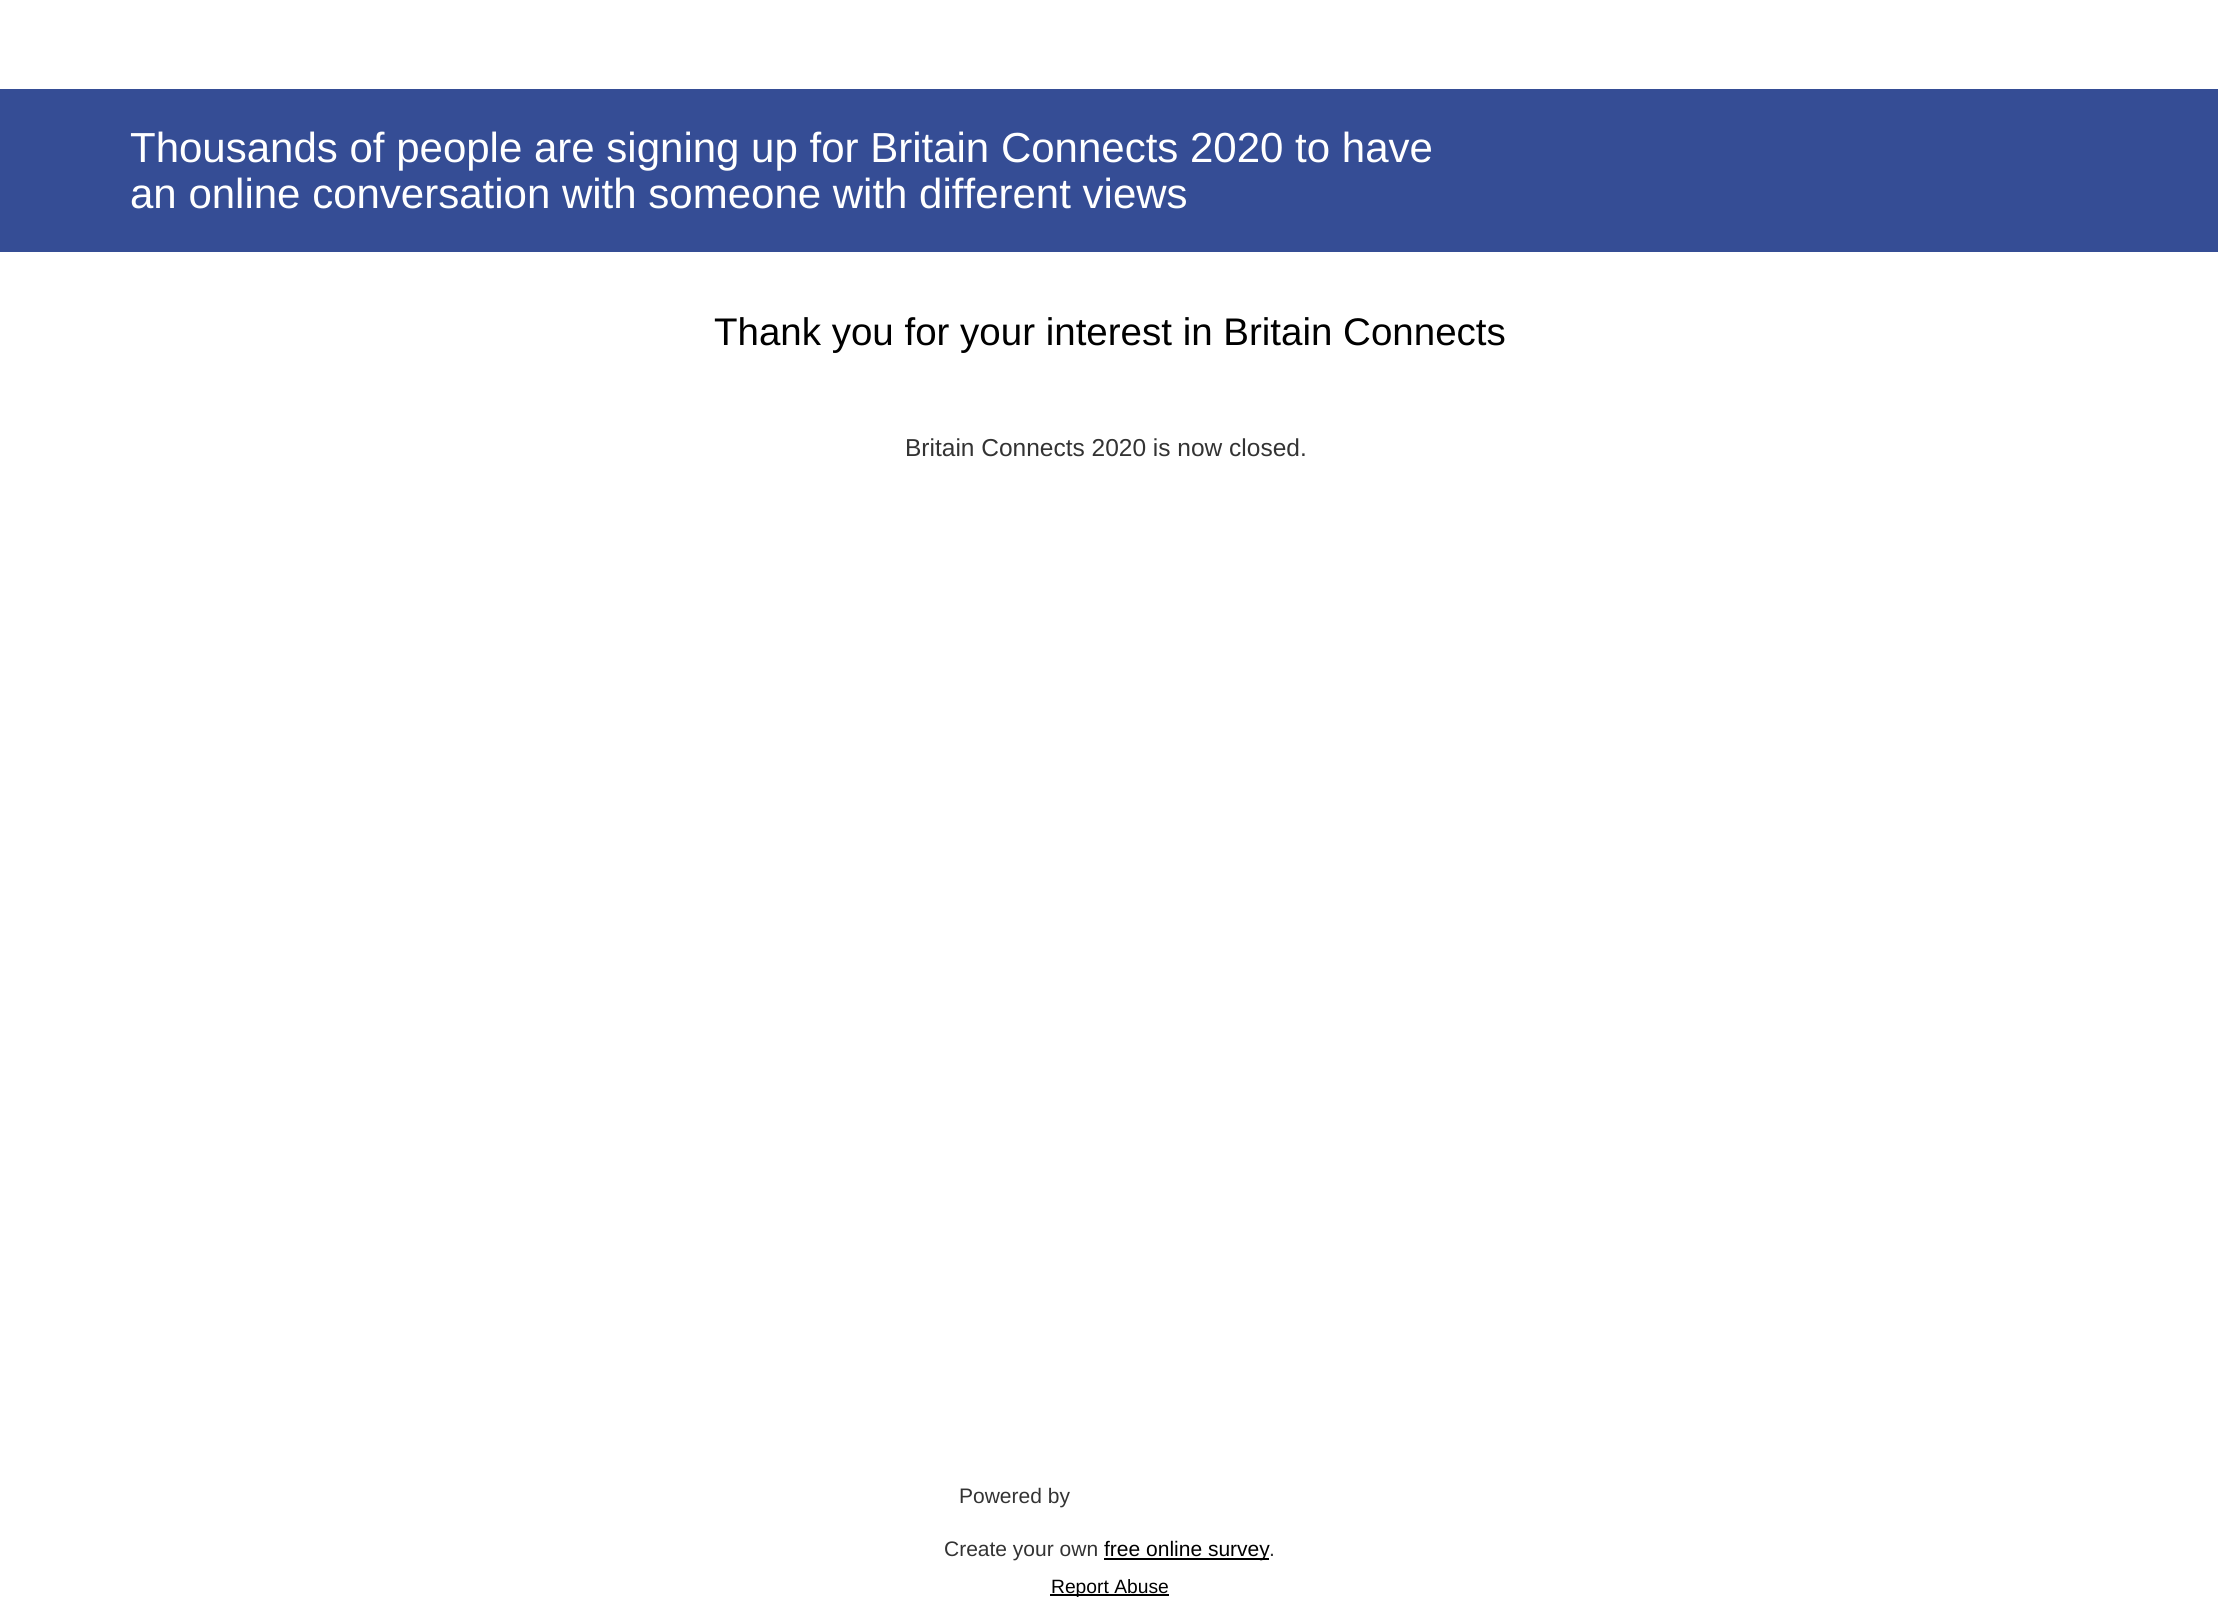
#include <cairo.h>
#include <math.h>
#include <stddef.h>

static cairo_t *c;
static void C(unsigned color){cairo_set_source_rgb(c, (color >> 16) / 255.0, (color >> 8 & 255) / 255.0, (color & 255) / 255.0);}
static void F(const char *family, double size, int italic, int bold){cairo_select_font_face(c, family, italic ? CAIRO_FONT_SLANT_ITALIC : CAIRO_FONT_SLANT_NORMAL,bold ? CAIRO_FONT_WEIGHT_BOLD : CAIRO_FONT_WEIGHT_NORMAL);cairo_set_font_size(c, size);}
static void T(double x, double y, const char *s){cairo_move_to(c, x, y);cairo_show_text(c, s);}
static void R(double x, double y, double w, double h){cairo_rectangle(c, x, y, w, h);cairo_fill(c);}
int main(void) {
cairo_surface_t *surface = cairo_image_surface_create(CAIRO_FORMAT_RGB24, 2218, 1621);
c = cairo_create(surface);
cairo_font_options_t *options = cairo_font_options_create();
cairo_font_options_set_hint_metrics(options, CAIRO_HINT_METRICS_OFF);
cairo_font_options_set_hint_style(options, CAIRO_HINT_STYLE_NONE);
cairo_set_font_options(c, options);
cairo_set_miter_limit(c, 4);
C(0xffffff);
cairo_paint(c);
C(0x354d95);
R(0,89,2218,163);
F("Liberation Sans",42,0,0);
C(0xffffff);
T(130,162,"Thousands of people are signing up for Britain Connects 2020 to have");
T(130,208,"an online conversation with someone with different views");
F("Liberation Sans",38.5,0,0);
C(0x000000);
T(714,345,"Thank you for your interest in Britain Connects");
F("Liberation Sans",24.5,0,0);
C(0x333333);
T(905,456,"Britain Connects 2020 is now closed.");
F("Liberation Sans",21,0,0);
T(959,1503,"Powered by");
T(944,1556,"Create your own");
C(0x000000);
R(1104,1558,165,2);
T(1104,1556,"free online survey");
C(0x333333);
T(1269,1556,".");
C(0x000000);
R(1050,1594,119,2);
F("Liberation Sans",19.25,0,0);
T(1051,1593,"Report Abuse");
cairo_surface_write_to_png(surface, "o.png");
cairo_font_options_destroy(options);
cairo_destroy(c);
cairo_surface_destroy(surface);
return 0;
}
